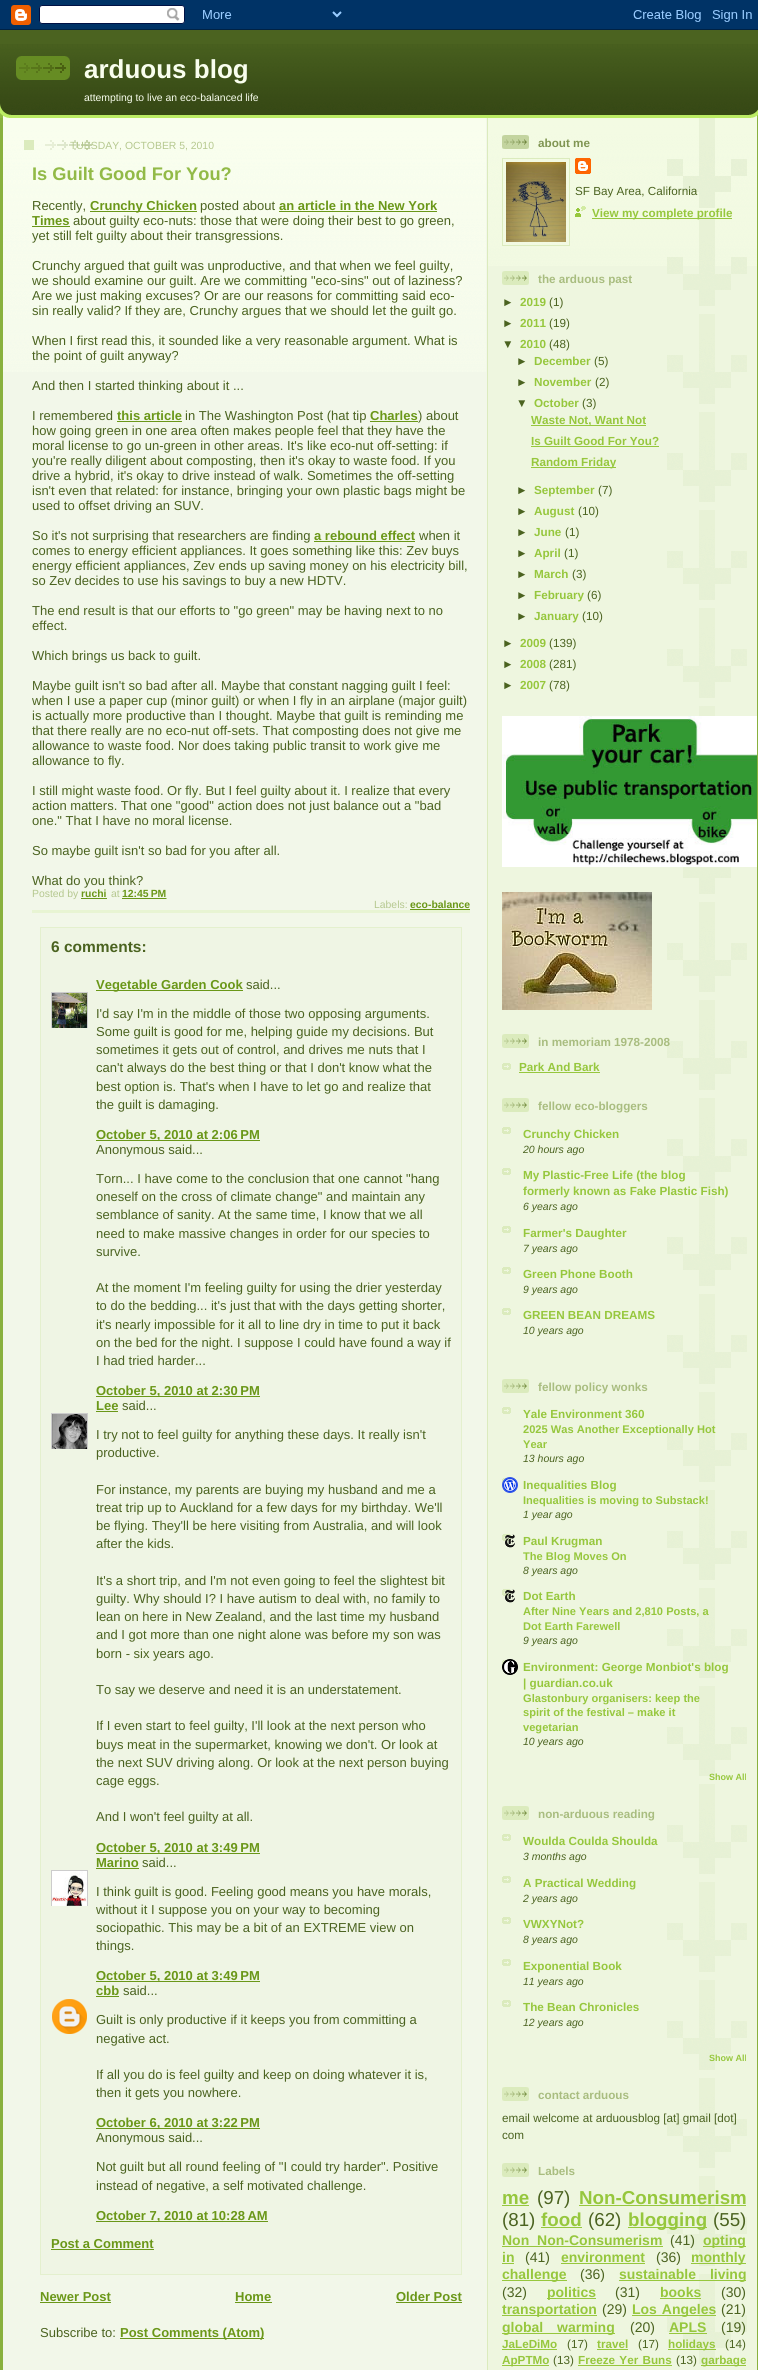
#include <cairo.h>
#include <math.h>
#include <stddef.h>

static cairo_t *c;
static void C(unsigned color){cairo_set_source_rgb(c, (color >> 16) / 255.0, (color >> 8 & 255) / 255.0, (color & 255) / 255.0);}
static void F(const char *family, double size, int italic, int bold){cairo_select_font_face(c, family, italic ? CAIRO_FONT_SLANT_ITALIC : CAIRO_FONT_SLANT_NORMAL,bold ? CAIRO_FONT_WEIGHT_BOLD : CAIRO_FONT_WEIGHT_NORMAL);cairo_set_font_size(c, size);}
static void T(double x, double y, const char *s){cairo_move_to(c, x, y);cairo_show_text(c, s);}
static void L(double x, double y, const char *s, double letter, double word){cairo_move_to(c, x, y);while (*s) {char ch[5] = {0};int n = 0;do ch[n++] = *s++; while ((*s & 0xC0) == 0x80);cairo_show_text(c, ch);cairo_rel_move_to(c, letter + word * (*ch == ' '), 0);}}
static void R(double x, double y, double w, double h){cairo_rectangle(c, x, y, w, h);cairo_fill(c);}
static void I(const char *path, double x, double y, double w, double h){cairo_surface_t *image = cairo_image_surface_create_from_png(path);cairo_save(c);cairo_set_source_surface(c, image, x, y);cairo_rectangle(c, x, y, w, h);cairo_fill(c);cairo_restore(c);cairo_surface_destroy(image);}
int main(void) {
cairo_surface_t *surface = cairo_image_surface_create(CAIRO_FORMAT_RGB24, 758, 2370);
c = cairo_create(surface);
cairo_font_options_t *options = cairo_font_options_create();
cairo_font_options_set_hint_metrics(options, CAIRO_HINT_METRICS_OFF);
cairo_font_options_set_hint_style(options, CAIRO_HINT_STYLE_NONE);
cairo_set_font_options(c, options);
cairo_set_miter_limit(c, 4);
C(0xffffff);
cairo_paint(c);
I("1.png",0,108,758,10);
I("2.png",0,0,758,30);
I("3.png",0,103,758,15);
C(0x4b6320);
R(0,30,758,14);
I("4.png",0,44,758,59);
I("5.png",16,56,54,24);
F("Liberation Sans",26,0,1);
C(0xf9feee);
T(84,78,"arduous blog");
F("Liberation Sans",10.4,0,0);
T(84,101,"attempting to live an eco-balanced life");
I("6.png",0,118,758,2252);
I("7.png",3,118,483,254);
C(0xdbebbd);
R(24,140,10,10);
I("8.png",45,140,47,10);
C(0xb5c88f);
T(70,149,"TUESDAY, OCTOBER 5, 2010");
C(0xe8f4d3);
R(32,910,438,3);
F("Liberation Sans",18.25,0,1);
C(0x92ba47);
T(32,180,"Is Guilt Good For You?");
F("Liberation Sans",13,0,0);
C(0x4b6320);
T(32,210,"Recently,");
C(0x6a9718);
R(90,211,107,1);
F("Liberation Sans",13,0,1);
T(90,210,"Crunchy Chicken");
F("Liberation Sans",13,0,0);
C(0x4b6320);
T(200,210,"posted about");
F("Liberation Sans",13,0,1);
C(0x6a9718);
T(279,210,"an article in the New York");
R(279,211,158,1);
T(32,225,"Times");
R(32,226,38,1);
F("Liberation Sans",13,0,0);
C(0x4b6320);
T(73,225,"about guilty eco-nuts: those that were doing their best to go green,");
T(32,240,"yet still felt guilty about their transgressions.");
T(32,270,"Crunchy argued that guilt was unproductive, and that when we feel guilty,");
T(32,285,"we should examine our guilt. Are we committing \"eco-sins\" out of laziness?");
T(32,300,"Are we just making excuses? Or are our reasons for committing said eco-");
T(32,315,"sin really valid? If they are, Crunchy argues that we should let the guilt go.");
T(32,345,"When I first read this, it sounded like a very reasonable argument. What is");
T(32,360,"the point of guilt anyway?");
T(32,390,"And then I started thinking about it ...");
T(32,420,"I remembered");
F("Liberation Sans",13,0,1);
C(0x6a9718);
T(117,420,"this article");
R(117,421,65,1);
F("Liberation Sans",13,0,0);
C(0x4b6320);
T(185,420,"in The Washington Post (hat tip");
F("Liberation Sans",13,0,1);
C(0x6a9718);
T(370,420,"Charles");
R(370,421,48,1);
F("Liberation Sans",13,0,0);
C(0x4b6320);
T(418,420,") about");
T(32,435,"how going green in one area often makes people feel that they have the");
T(32,450,"moral license to go un-green in other areas. It's like eco-nut off-setting: if");
T(32,465,"you're really diligent about composting, then it's okay to waste food. If you");
T(32,480,"drive a hybrid, it's okay to drive instead of walk. Sometimes the off-setting");
T(32,495,"isn't even that related: for instance, bringing your own plastic bags might be");
T(32,510,"used to offset driving an SUV.");
T(32,540,"So it's not surprising that researchers are finding");
F("Liberation Sans",13,0,1);
C(0x6a9718);
T(314,540,"a rebound effect");
R(314,541,101,1);
F("Liberation Sans",13,0,0);
C(0x4b6320);
T(419,540,"when it");
T(32,555,"comes to energy efficient appliances. It goes something like this: Zev buys");
T(32,570,"energy efficient appliances, Zev ends up saving money on his electricity bill,");
T(32,585,"so Zev decides to use his savings to buy a new HDTV.");
T(32,615,"The end result is that our efforts to \"go green\" may be having next to no");
T(32,630,"effect.");
T(32,660,"Which brings us back to guilt.");
T(32,690,"Maybe guilt isn't so bad after all. Maybe that constant nagging guilt I feel:");
T(32,705,"when I use a paper cup (minor guilt) or when I fly in an airplane (major guilt)");
T(32,720,"is actually more productive than I thought. Maybe that guilt is reminding me");
T(32,735,"that there really are no eco-nut off-sets. That composting does not give me");
T(32,750,"allowance to waste food. Nor does taking public transit to work give me");
T(32,765,"allowance to fly.");
T(32,795,"I still might waste food. Or fly. But I feel guilty about it. I realize that every");
T(32,810,"action matters. That one \"good\" action does not just balance out a \"bad");
T(32,825,"one.\" That I have no moral license.");
T(32,855,"So maybe guilt isn't so bad for you after all.");
T(32,885,"What do you think?");
F("Liberation Sans",10.4,0,0);
C(0xb5c88f);
T(32,897,"Posted by");
F("Liberation Sans",10.4,0,1);
C(0x6a9718);
T(81,897,"ruchi");
R(81,898,26,1);
F("Liberation Sans",10.4,0,0);
C(0xb5c88f);
T(111,897,"at");
F("Liberation Sans",10.4,0,1);
C(0x6a9718);
T(122,897,"12:45 PM");
cairo_new_path(c);
cairo_move_to(c,122,898.5);
cairo_line_to(c,166.5,898.5);
cairo_set_line_width(c,1);
cairo_set_dash(c,(double[]){1,1},2,0);
cairo_stroke(c);
R(122,898,44,1);
F("Liberation Sans",10.4,0,0);
C(0xb5c88f);
T(374,908,"Labels:");
F("Liberation Sans",10.4,0,1);
C(0x6a9718);
T(410,908,"eco-balance");
R(410,909,60,1);
C(0xeff5e4);
cairo_rectangle(c,40.5,927.5,421,1347);
cairo_fill_preserve(c);
C(0xe4f0ce);
cairo_set_dash(c,NULL,0,0);
cairo_stroke(c);
F("Liberation Sans",15.5,0,1);
C(0x4b6320);
T(51,952,"6 comments:");
C(0x6a9718);
R(96,990,147,1);
F("Liberation Sans",13,0,1);
T(96,989,"Vegetable Garden Cook");
F("Liberation Sans",13,0,0);
C(0x4b6320);
T(246,989,"said...");
cairo_save(c);
cairo_rectangle(c,51,992,37,36);
cairo_clip(c);
cairo_rectangle(c,51.5,992.5,36,36);
C(0xcccccc);
cairo_stroke(c);
cairo_restore(c);
I("9.png",52,993,35,35);
T(96,1018,"I'd say I'm in the middle of those two opposing arguments.");
T(96,1036,"Some guilt is good for me, helping guide my decisions. But");
T(96,1054,"sometimes it gets out of control, and drives me nuts that I");
T(96,1072,"can't always do the best thing or that I don't know what the");
T(96,1091,"best option is. That's when I have to let go and realize that");
T(96,1109,"the guilt is damaging.");
C(0x6a9718);
R(96,1140,164,1);
F("Liberation Sans",13,0,1);
T(96,1139,"October 5, 2010 at 2:06 PM");
F("Liberation Sans",13,0,0);
C(0x4b6320);
T(96,1154,"Anonymous said...");
T(96,1183,"Torn... I have come to the conclusion that one cannot \"hang");
T(96,1201,"oneself on the cross of climate change\" and maintain any");
T(96,1219,"semblance of sanity. At the same time, I know that we all");
T(96,1238,"need to make massive changes in order for our species to");
T(96,1256,"survive.");
T(96,1292,"At the moment I'm feeling guilty for using the drier yesterday");
T(96,1310,"to do the bedding... it's just that with the days getting shorter,");
T(96,1329,"it's nearly impossible for it all to line dry in time to put it back");
T(96,1347,"on the bed for the night. I suppose I could have found a way if");
T(96,1365,"I had tried harder...");
C(0x6a9718);
R(96,1396,164,1);
F("Liberation Sans",13,0,1);
T(96,1395,"October 5, 2010 at 2:30 PM");
T(96,1410,"Lee");
R(96,1411,22,1);
F("Liberation Sans",13,0,0);
C(0x4b6320);
T(122,1410,"said...");
cairo_save(c);
cairo_rectangle(c,51,1413,37,36);
cairo_clip(c);
cairo_rectangle(c,51.5,1413.5,36,36);
C(0xcccccc);
cairo_stroke(c);
cairo_restore(c);
I("10.png",52,1414,35,35);
T(96,1439,"I try not to feel guilty for anything these days. It really isn't");
T(96,1457,"productive.");
T(96,1494,"For instance, my parents are buying my husband and me a");
T(96,1512,"treat trip up to Auckland for a few days for my birthday. We'll");
T(96,1530,"be flying. They'll be here visiting from Australia, and will look");
T(96,1548,"after the kids.");
T(96,1585,"It's a short trip, and I'm not even going to feel the slightest bit");
T(96,1603,"guilty. Why should I? I have autism to deal with, no family to");
T(96,1621,"lean on here in New Zealand, and the last time my husband");
T(96,1639,"and I got more than one night alone was before my son was");
T(96,1658,"born - six years ago.");
T(96,1694,"To say we deserve and need it is an understatement.");
T(96,1730,"If I even start to feel guilty, I'll look at the next person who");
T(96,1749,"buys meat in the supermarket, knowing we don't. Or look at");
T(96,1767,"the next SUV driving along. Or look at the next person buying");
T(96,1785,"cage eggs.");
T(96,1821,"And I won't feel guilty at all.");
C(0x6a9718);
R(96,1853,164,1);
F("Liberation Sans",13,0,1);
T(96,1852,"October 5, 2010 at 3:49 PM");
T(96,1867,"Marino");
R(96,1868,43,1);
F("Liberation Sans",13,0,0);
C(0x4b6320);
T(142,1867,"said...");
cairo_save(c);
cairo_rectangle(c,51,1870,37,36);
cairo_clip(c);
cairo_rectangle(c,51.5,1870.5,36,36);
C(0xcccccc);
cairo_stroke(c);
cairo_restore(c);
I("11.png",52,1871,35,35);
T(96,1896,"I think guilt is good. Feeling good means you have morals,");
T(96,1914,"without it I suppose you on your way to becoming");
T(96,1932,"sociopathic. This may be a bit of an EXTREME view on");
T(96,1950,"things.");
C(0x6a9718);
R(96,1981,164,1);
F("Liberation Sans",13,0,1);
T(96,1980,"October 5, 2010 at 3:49 PM");
T(96,1995,"cbb");
R(96,1996,23,1);
F("Liberation Sans",13,0,0);
C(0x4b6320);
T(123,1995,"said...");
I("12.png",52,1999,35,35);
T(96,2024,"Guilt is only productive if it keeps you from committing a");
T(96,2043,"negative act.");
T(96,2079,"If all you do is feel guilty and keep on doing whatever it is,");
T(96,2097,"then it gets you nowhere.");
C(0x6a9718);
R(96,2128,164,1);
F("Liberation Sans",13,0,1);
T(96,2127,"October 6, 2010 at 3:22 PM");
F("Liberation Sans",13,0,0);
C(0x4b6320);
T(96,2142,"Anonymous said...");
T(96,2171,"Not guilt but all round feeling of \"I could try harder\". Positive");
T(96,2190,"instead of negative, a self motivated challenge.");
C(0x6a9718);
R(96,2221,172,1);
F("Liberation Sans",13,0,1);
T(96,2220,"October 7, 2010 at 10:28 AM");
T(51,2248,"Post a Comment");
R(51,2249,103,1);
T(40,2301,"Newer Post");
R(40,2302,71,1);
T(235,2301,"Home");
R(235,2302,37,1);
T(396,2301,"Older Post");
R(396,2302,66,1);
F("Liberation Sans",13,0,0);
C(0x4b6320);
T(40,2337,"Subscribe to:");
C(0x6a9718);
R(120,2338,144,1);
F("Liberation Sans",13,0,1);
T(120,2337,"Post Comments (Atom)");
I("13.png",488,118,269,148);
I("14.png",667,118,80,2246);
I("15.png",502,135,27,14);
F("Liberation Sans",11.7,0,1);
C(0x809552);
T(538,147,"about me");
cairo_rectangle(c,502.5,158.5,67,87);
C(0xdbebbd);
cairo_stroke(c);
I("16.png",506,162,60,80);
I("17.png",575,158,16,16);
F("Liberation Sans",11.7,0,0);
C(0x4b6320);
T(575,195,"SF Bay Area, California");
I("18.png",575,206,11,11);
C(0x96c73d);
R(592,218,140,1);
F("Liberation Sans",11.7,0,1);
T(592,217,"View my complete profile");
I("19.png",502,271,27,14);
C(0xa9bd80);
T(538,283,"the arduous past");
C(0x4b6320);
T(502,306,"►");
C(0x96c73d);
T(520,306,"2019");
F("Liberation Sans",11.7,0,0);
C(0x4b6320);
T(549,306,"(1)");
F("Liberation Sans",11.7,0,1);
T(502,327,"►");
C(0x96c73d);
T(520,327,"2011");
F("Liberation Sans",11.7,0,0);
C(0x4b6320);
T(549,327,"(19)");
F("Liberation Sans",11.7,0,1);
T(502,348,"▼");
C(0x96c73d);
T(520,348,"2010");
F("Liberation Sans",11.7,0,0);
C(0x4b6320);
T(549,348,"(48)");
F("Liberation Sans",11.7,0,1);
T(516,365,"►");
C(0x96c73d);
T(534,365,"December");
F("Liberation Sans",11.7,0,0);
C(0x4b6320);
T(594,365,"(5)");
F("Liberation Sans",11.7,0,1);
T(516,386,"►");
C(0x96c73d);
T(534,386,"November");
F("Liberation Sans",11.7,0,0);
C(0x4b6320);
T(595,386,"(2)");
F("Liberation Sans",11.7,0,1);
T(516,407,"▼");
C(0x96c73d);
T(534,407,"October");
F("Liberation Sans",11.7,0,0);
C(0x4b6320);
T(582,407,"(3)");
C(0x96c73d);
R(531,425,115,1);
F("Liberation Sans",11.7,0,1);
T(531,424,"Waste Not, Want Not");
T(531,445,"Is Guilt Good For You?");
R(531,446,128,1);
R(531,467,85,1);
T(531,466,"Random Friday");
C(0x4b6320);
T(516,494,"►");
C(0x96c73d);
T(534,494,"September");
F("Liberation Sans",11.7,0,0);
C(0x4b6320);
T(598,494,"(7)");
F("Liberation Sans",11.7,0,1);
T(516,515,"►");
C(0x96c73d);
T(534,515,"August");
F("Liberation Sans",11.7,0,0);
C(0x4b6320);
T(578,515,"(10)");
F("Liberation Sans",11.7,0,1);
T(516,536,"►");
C(0x96c73d);
T(534,536,"June");
F("Liberation Sans",11.7,0,0);
C(0x4b6320);
T(565,536,"(1)");
F("Liberation Sans",11.7,0,1);
T(516,557,"►");
C(0x96c73d);
T(534,557,"April");
F("Liberation Sans",11.7,0,0);
C(0x4b6320);
T(564,557,"(1)");
F("Liberation Sans",11.7,0,1);
T(516,578,"►");
C(0x96c73d);
T(534,578,"March");
F("Liberation Sans",11.7,0,0);
C(0x4b6320);
T(572,578,"(3)");
F("Liberation Sans",11.7,0,1);
T(516,599,"►");
C(0x96c73d);
T(534,599,"February");
F("Liberation Sans",11.7,0,0);
C(0x4b6320);
T(587,599,"(6)");
F("Liberation Sans",11.7,0,1);
T(516,620,"►");
C(0x96c73d);
T(534,620,"January");
F("Liberation Sans",11.7,0,0);
C(0x4b6320);
T(582,620,"(10)");
F("Liberation Sans",11.7,0,1);
T(502,647,"►");
C(0x96c73d);
T(520,647,"2009");
F("Liberation Sans",11.7,0,0);
C(0x4b6320);
T(549,647,"(139)");
F("Liberation Sans",11.7,0,1);
T(502,668,"►");
C(0x96c73d);
T(520,668,"2008");
F("Liberation Sans",11.7,0,0);
C(0x4b6320);
T(549,668,"(281)");
F("Liberation Sans",11.7,0,1);
T(502,689,"►");
C(0x96c73d);
T(520,689,"2007");
F("Liberation Sans",11.7,0,0);
C(0x4b6320);
T(549,689,"(78)");
I("20.png",502,716,255,151);
I("21.png",502,892,150,118);
I("19.png",502,1034,27,14);
F("Liberation Sans",11.7,0,1);
C(0xa9bd80);
T(538,1046,"in memoriam 1978-2008");
I("22.png",502,1063,9,7);
C(0x96c73d);
T(519,1071,"Park And Bark");
R(519,1072,81,1);
I("19.png",502,1098,27,14);
C(0xa9bd80);
T(538,1110,"fellow eco-bloggers");
I("22.png",502,1127,9,7);
C(0x96c73d);
T(523,1138,"Crunchy Chicken");
F("Liberation Sans",10.5,1,0);
C(0x4b6320);
T(523,1153,"20 hours ago");
I("22.png",502,1168,9,7);
F("Liberation Sans",11.7,0,1);
C(0x96c73d);
T(523,1179,"My Plastic-Free Life (the blog");
T(523,1195,"formerly known as Fake Plastic Fish)");
F("Liberation Sans",10.5,1,0);
C(0x4b6320);
T(523,1210,"6 years ago");
I("22.png",502,1226,9,7);
F("Liberation Sans",11.7,0,1);
C(0x96c73d);
T(523,1237,"Farmer's Daughter");
F("Liberation Sans",10.5,1,0);
C(0x4b6320);
T(523,1252,"7 years ago");
I("22.png",502,1267,9,7);
F("Liberation Sans",11.7,0,1);
C(0x96c73d);
T(523,1278,"Green Phone Booth");
F("Liberation Sans",10.5,1,0);
C(0x4b6320);
T(523,1293,"9 years ago");
I("22.png",502,1308,9,7);
F("Liberation Sans",11.7,0,1);
C(0x96c73d);
T(523,1319,"GREEN BEAN DREAMS");
F("Liberation Sans",10.5,1,0);
C(0x4b6320);
T(523,1334,"10 years ago");
I("19.png",502,1379,27,14);
F("Liberation Sans",11.7,0,1);
C(0xa9bd80);
T(538,1391,"fellow policy wonks");
I("22.png",502,1407,9,7);
C(0x96c73d);
T(523,1418,"Yale Environment 360");
F("Liberation Sans",11.1,0,1);
T(523,1433,"2025 Was Another Exceptionally Hot");
T(523,1448,"Year");
F("Liberation Sans",10.5,1,0);
C(0x4b6320);
T(523,1462,"13 hours ago");
I("23.png",502,1478,4,6);
I("24.png",502,1477,16,16);
F("Liberation Sans",11.7,0,1);
C(0x96c73d);
T(523,1489,"Inequalities Blog");
F("Liberation Sans",11.1,0,1);
T(523,1504,"Inequalities is moving to Substack!");
F("Liberation Sans",10.5,1,0);
C(0x4b6320);
T(523,1518,"1 year ago");
I("22.png",502,1534,9,7);
I("25.png",505,1534,10,14);
F("Liberation Sans",11.7,0,1);
C(0x96c73d);
T(523,1545,"Paul Krugman");
F("Liberation Sans",11.1,0,1);
T(523,1560,"The Blog Moves On");
F("Liberation Sans",10.5,1,0);
C(0x4b6320);
T(523,1574,"8 years ago");
I("22.png",502,1589,9,7);
I("25.png",505,1589,10,14);
F("Liberation Sans",11.7,0,1);
C(0x96c73d);
T(523,1600,"Dot Earth");
F("Liberation Sans",11.1,0,1);
T(523,1615,"After Nine Years and 2,810 Posts, a");
T(523,1630,"Dot Earth Farewell");
F("Liberation Sans",10.5,1,0);
C(0x4b6320);
T(523,1644,"9 years ago");
I("23.png",502,1660,4,6);
I("26.png",502,1659,16,16);
F("Liberation Sans",11.7,0,1);
C(0x96c73d);
T(523,1671,"Environment: George Monbiot's blog");
T(523,1687,"| guardian.co.uk");
F("Liberation Sans",11.1,0,1);
T(523,1702,"Glastonbury organisers: keep the");
T(523,1716,"spirit of the festival – make it");
T(523,1731,"vegetarian");
F("Liberation Sans",10.5,1,0);
C(0x4b6320);
T(523,1745,"10 years ago");
F("Liberation Sans",9,0,1);
C(0x96c73d);
T(709,1780,"Show All");
I("19.png",502,1806,27,14);
F("Liberation Sans",11.7,0,1);
C(0xa9bd80);
T(538,1818,"non-arduous reading");
I("22.png",502,1834,9,7);
C(0x96c73d);
T(523,1845,"Woulda Coulda Shoulda");
F("Liberation Sans",10.5,1,0);
C(0x4b6320);
T(523,1860,"3 months ago");
I("22.png",502,1876,9,7);
F("Liberation Sans",11.7,0,1);
C(0x96c73d);
T(523,1887,"A Practical Wedding");
F("Liberation Sans",10.5,1,0);
C(0x4b6320);
T(523,1902,"2 years ago");
I("22.png",502,1917,9,7);
F("Liberation Sans",11.7,0,1);
C(0x96c73d);
T(523,1928,"VWXYNot?");
F("Liberation Sans",10.5,1,0);
C(0x4b6320);
T(523,1943,"8 years ago");
I("22.png",502,1959,9,7);
F("Liberation Sans",11.7,0,1);
C(0x96c73d);
T(523,1970,"Exponential Book");
F("Liberation Sans",10.5,1,0);
C(0x4b6320);
T(523,1985,"11 years ago");
I("22.png",502,2000,9,7);
F("Liberation Sans",11.7,0,1);
C(0x96c73d);
T(523,2011,"The Bean Chronicles");
F("Liberation Sans",10.5,1,0);
C(0x4b6320);
T(523,2026,"12 years ago");
F("Liberation Sans",9,0,1);
C(0x96c73d);
T(709,2061,"Show All");
I("19.png",502,2087,27,14);
F("Liberation Sans",11.7,0,1);
C(0xa9bd80);
T(538,2099,"contact arduous");
F("Liberation Sans",11.7,0,0);
C(0x4b6320);
T(502,2122,"email welcome at arduousblog [at] gmail [dot]");
T(502,2139,"com");
I("19.png",502,2163,27,14);
F("Liberation Sans",11.7,0,1);
C(0xa9bd80);
T(538,2175,"Labels");
F("Liberation Sans",18.75,0,1);
C(0x96c73d);
T(502,2204,"me");
R(502,2205,27,1);
F("Liberation Sans",18.75,0,0);
C(0x4b6320);
T(537,2204,"(97)");
F("Liberation Sans",18.75,0,1);
C(0x96c73d);
T(579,2204,"Non-Consumerism");
R(579,2205,167,1);
F("Liberation Sans",18.75,0,0);
C(0x4b6320);
T(502,2226,"(81)");
F("Liberation Sans",18.75,0,1);
C(0x96c73d);
T(541,2226,"food");
R(541,2227,41,1);
F("Liberation Sans",18.75,0,0);
C(0x4b6320);
T(588,2226,"(62)");
C(0x96c73d);
R(628,2227,79,1);
F("Liberation Sans",18.75,0,1);
T(628,2226,"blogging");
F("Liberation Sans",18.75,0,0);
C(0x4b6320);
T(713,2226,"(55)");
F("Liberation Sans",14,0,1);
C(0x96c73d);
L(502,2245,"Non Non-Consumerism",0,4);
R(502,2246,161,1);
F("Liberation Sans",14,0,0);
C(0x4b6320);
T(670,2245,"(41)");
C(0x96c73d);
R(703,2246,43,1);
F("Liberation Sans",14,0,1);
T(703,2245,"opting");
T(502,2262,"in");
R(502,2263,12,1);
F("Liberation Sans",14,0,0);
C(0x4b6320);
T(525,2262,"(41)");
F("Liberation Sans",14,0,1);
C(0x96c73d);
T(561,2262,"environment");
R(561,2263,84,1);
F("Liberation Sans",14,0,0);
C(0x4b6320);
T(656,2262,"(36)");
C(0x96c73d);
R(691,2263,55,1);
F("Liberation Sans",14,0,1);
T(691,2262,"monthly");
R(502,2280,65,1);
T(502,2279,"challenge");
F("Liberation Sans",14,0,0);
C(0x4b6320);
T(580,2279,"(36)");
C(0x96c73d);
R(619,2280,127,1);
F("Liberation Sans",14,0,1);
L(619,2279,"sustainable living",0,10);
F("Liberation Sans",14,0,0);
C(0x4b6320);
T(502,2297,"(32)");
C(0x96c73d);
R(547,2298,49,1);
F("Liberation Sans",14,0,1);
T(547,2297,"politics");
F("Liberation Sans",14,0,0);
C(0x4b6320);
T(615,2297,"(31)");
F("Liberation Sans",14,0,1);
C(0x96c73d);
T(660,2297,"books");
R(660,2298,41,1);
F("Liberation Sans",14,0,0);
C(0x4b6320);
T(721,2297,"(30)");
C(0x96c73d);
R(502,2315,95,1);
F("Liberation Sans",14,0,1);
T(502,2314,"transportation");
F("Liberation Sans",14,0,0);
C(0x4b6320);
T(602,2314,"(29)");
C(0x96c73d);
R(632,2315,84,1);
F("Liberation Sans",14,0,1);
L(632,2314,"Los Angeles",0,1);
F("Liberation Sans",14,0,0);
C(0x4b6320);
T(721,2314,"(21)");
C(0x96c73d);
R(502,2333,113,1);
F("Liberation Sans",14,0,1);
L(502,2332,"global warming",0,10);
F("Liberation Sans",14,0,0);
C(0x4b6320);
T(630,2332,"(20)");
F("Liberation Sans",14,0,1);
C(0x96c73d);
T(669,2332,"APLS");
R(669,2333,38,1);
F("Liberation Sans",14,0,0);
C(0x4b6320);
T(721,2332,"(19)");
F("Liberation Sans",11.7,0,1);
C(0x96c73d);
T(502,2348,"JaLeDiMo");
R(502,2349,55,1);
F("Liberation Sans",11.7,0,0);
C(0x4b6320);
T(567,2348,"(17)");
F("Liberation Sans",11.7,0,1);
C(0x96c73d);
T(597,2348,"travel");
R(597,2349,31,1);
F("Liberation Sans",11.7,0,0);
C(0x4b6320);
T(638,2348,"(17)");
C(0x96c73d);
R(668,2349,48,1);
F("Liberation Sans",11.7,0,1);
T(668,2348,"holidays");
F("Liberation Sans",11.7,0,0);
C(0x4b6320);
T(725,2348,"(14)");
C(0x96c73d);
R(502,2365,47,1);
F("Liberation Sans",11.7,0,1);
T(502,2364,"ApPTMo");
F("Liberation Sans",11.7,0,0);
C(0x4b6320);
T(553,2364,"(13)");
F("Liberation Sans",11.7,0,1);
C(0x96c73d);
L(578,2364,"Freeze Yer Buns",0,1);
R(578,2365,94,1);
F("Liberation Sans",11.7,0,0);
C(0x4b6320);
T(676,2364,"(13)");
C(0x96c73d);
R(701,2365,45,1);
F("Liberation Sans",11.7,0,1);
T(701,2364,"garbage");
cairo_surface_write_to_png(surface, "o.png");
cairo_font_options_destroy(options);
cairo_destroy(c);
cairo_surface_destroy(surface);
return 0;
}
